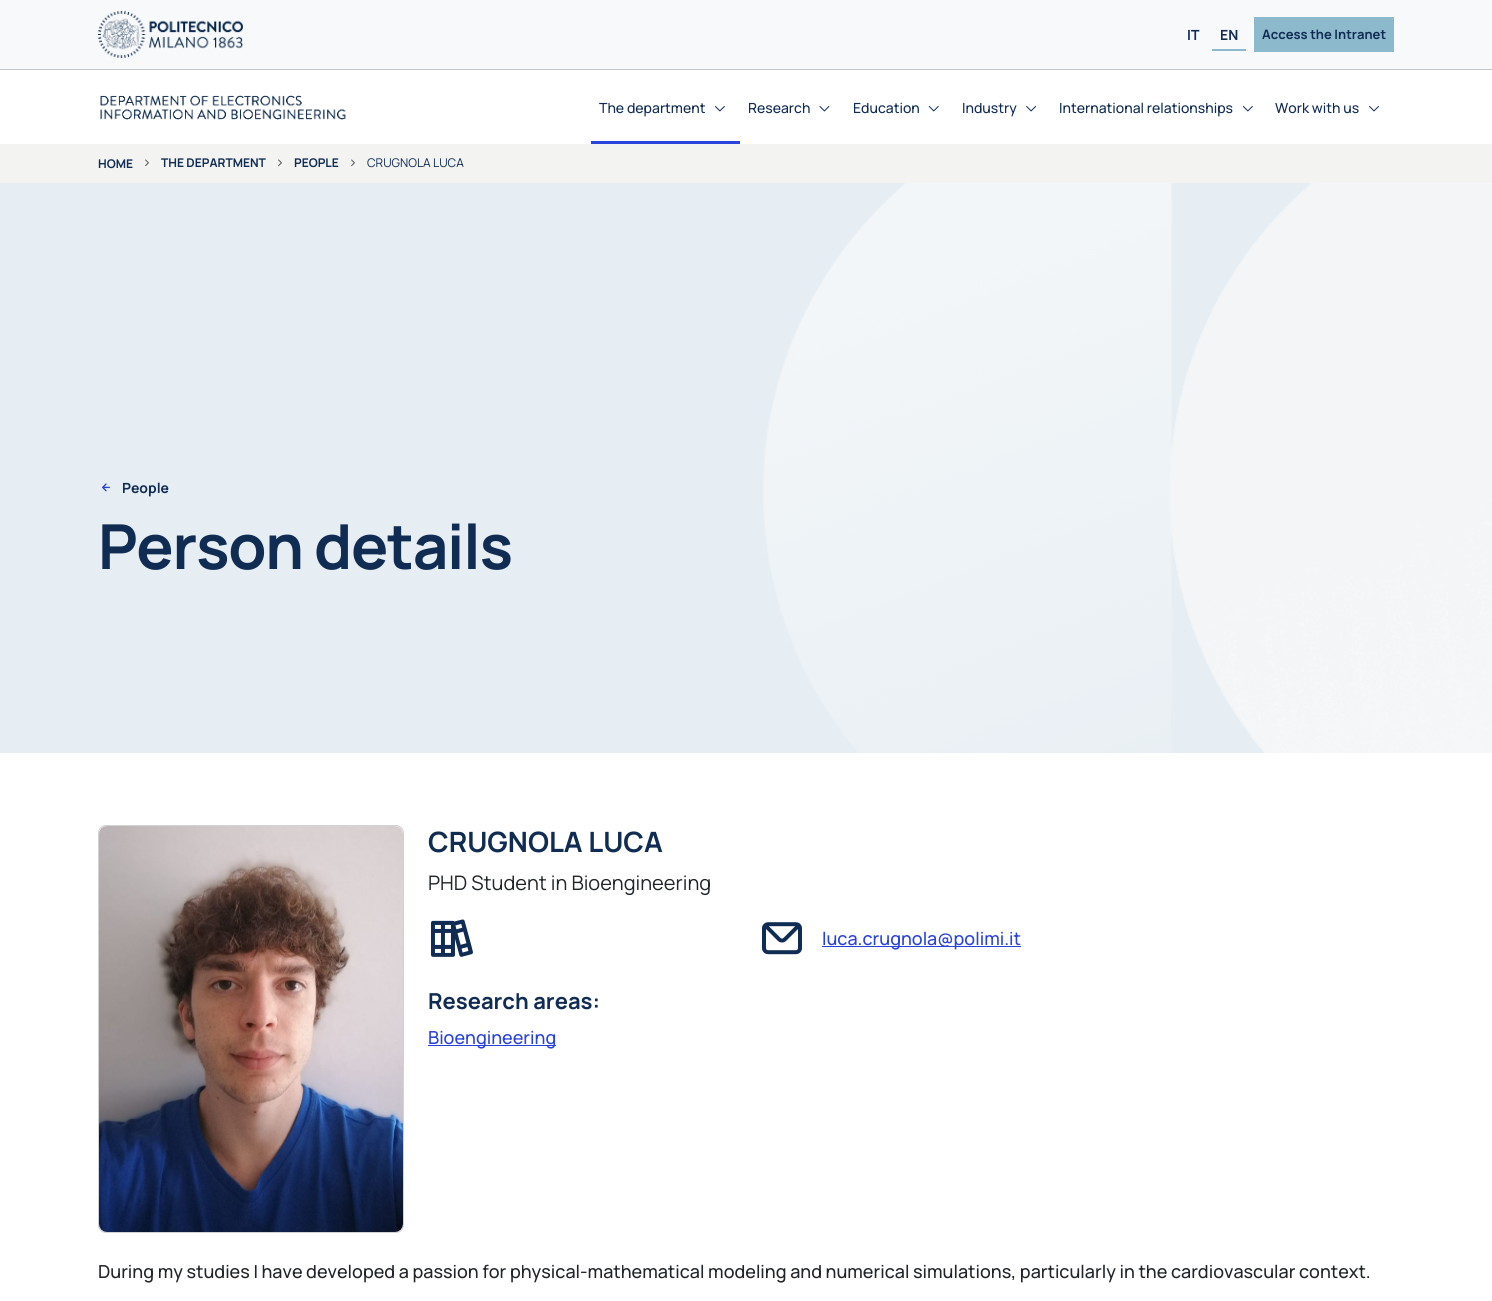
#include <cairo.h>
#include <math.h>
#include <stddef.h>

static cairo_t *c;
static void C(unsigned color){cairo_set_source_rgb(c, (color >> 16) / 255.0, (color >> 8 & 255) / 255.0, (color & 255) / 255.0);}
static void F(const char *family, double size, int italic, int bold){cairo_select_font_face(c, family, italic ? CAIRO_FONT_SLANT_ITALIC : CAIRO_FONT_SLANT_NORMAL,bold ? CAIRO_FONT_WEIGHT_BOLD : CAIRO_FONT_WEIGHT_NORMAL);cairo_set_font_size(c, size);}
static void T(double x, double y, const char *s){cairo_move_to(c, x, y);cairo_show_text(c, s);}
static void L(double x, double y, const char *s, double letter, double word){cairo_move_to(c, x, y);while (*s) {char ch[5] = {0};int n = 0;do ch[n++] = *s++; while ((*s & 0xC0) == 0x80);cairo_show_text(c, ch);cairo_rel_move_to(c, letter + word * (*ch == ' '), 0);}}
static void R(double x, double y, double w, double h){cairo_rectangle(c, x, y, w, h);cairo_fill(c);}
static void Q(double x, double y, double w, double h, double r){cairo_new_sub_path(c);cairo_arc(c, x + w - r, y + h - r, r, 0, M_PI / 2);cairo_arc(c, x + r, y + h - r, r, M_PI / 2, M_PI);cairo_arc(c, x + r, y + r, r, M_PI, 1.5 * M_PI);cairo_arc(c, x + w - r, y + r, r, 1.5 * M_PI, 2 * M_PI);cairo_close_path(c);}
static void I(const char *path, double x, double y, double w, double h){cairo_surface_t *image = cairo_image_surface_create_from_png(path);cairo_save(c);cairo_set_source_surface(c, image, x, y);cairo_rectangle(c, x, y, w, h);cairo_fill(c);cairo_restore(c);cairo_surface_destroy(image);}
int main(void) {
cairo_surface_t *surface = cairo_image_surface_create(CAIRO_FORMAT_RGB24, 1492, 1301);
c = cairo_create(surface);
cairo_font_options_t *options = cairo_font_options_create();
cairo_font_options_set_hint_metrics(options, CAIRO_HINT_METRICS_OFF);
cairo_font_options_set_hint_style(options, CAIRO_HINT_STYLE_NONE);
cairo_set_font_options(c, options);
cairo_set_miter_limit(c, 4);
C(0xffffff);
cairo_paint(c);
C(0xf8f9fa);
R(0,0,1492,69);
C(0xc1c7ca);
R(0,69,1492,1);
I("1.png",98,11,145,47);
F("Manrope ExtraLight",14,0,0);
C(0x102c53);
T(1187,40,"IT");
C(0x8db9cd);
R(1212,49,34,2);
C(0x102c53);
T(1220,40,"EN");
C(0x8db9cd);
R(1254,17,140,35);
F("Manrope ExtraLight",13,0,0);
C(0x102c53);
T(1262,39,"Access the Intranet");
I("2.png",100,95,246,25);
C(0x2942db);
R(591,141,149,3);
F("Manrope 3 ExtraLight",14,0,0);
C(0x102c53);
T(599,113,"The department");
I("3.png",715,106,10,6);
T(748,113,"Research");
I("4.png",819,106,11,6);
T(853,113,"Education");
I("5.png",928,106,11,6);
T(962,113,"Industry");
I("6.png",1026,106,10,6);
T(1059,113,"International relationships");
I("7.png",1242,106,11,6);
T(1275,113,"Work with us");
I("8.png",1369,106,10,6);
C(0xf3f3f1);
R(0,144,1492,39);
F("Manrope ExtraLight",12,0,0);
C(0x102c53);
T(98,168,"HOME");
I("9.png",145,159,4,8);
T(161,167,"THE DEPARTMENT");
I("9.png",278,159,4,8);
T(294,167,"PEOPLE");
I("9.png",351,159,4,8);
F("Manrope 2 ExtraLight",12,0,0);
T(367,167,"CRUGNOLA LUCA");
C(0xe7eef3);
R(0,183,1313,570);
I("10.png",763,183,729,570);
I("11.png",102,483,8,9);
F("Manrope ExtraLight",14,0,0);
C(0x102c53);
T(122,493,"People");
F("Manrope ExtraLight",62,0,0);
L(98,569,"Person details",-1.25,0);
Q(98.5,825.5,305,407,7.5);
C(0xd2d2d2);
cairo_set_line_width(c,1);
cairo_stroke(c);
I("12.png",99,826,304,406);
F("Manrope ExtraLight",28,0,0);
C(0x102c53);
T(428,852,"CRUGNOLA LUCA");
F("Manrope 2 ExtraLight",20,0,0);
C(0x212529);
T(428,890,"PHD Student in Bioengineering");
I("13.png",762,922,40,33);
C(0x2942db);
R(822,946,199,1);
F("Manrope 3 ExtraLight",18,0,0);
T(822,945,"luca.crugnola@polimi.it");
I("14.png",430,919,43,38);
F("Manrope ExtraLight",22,0,0);
C(0x102c53);
T(428,1009,"Research areas:");
C(0x2942db);
R(428,1045,128,1);
F("Manrope 3 ExtraLight",18,0,0);
T(428,1044,"Bioengineering");
C(0x212529);
T(98,1278,"During my studies I have developed a passion for physical-mathematical modeling and numerical simulations, particularly in the cardiovascular context.");
cairo_surface_write_to_png(surface, "o.png");
cairo_font_options_destroy(options);
cairo_destroy(c);
cairo_surface_destroy(surface);
return 0;
}
